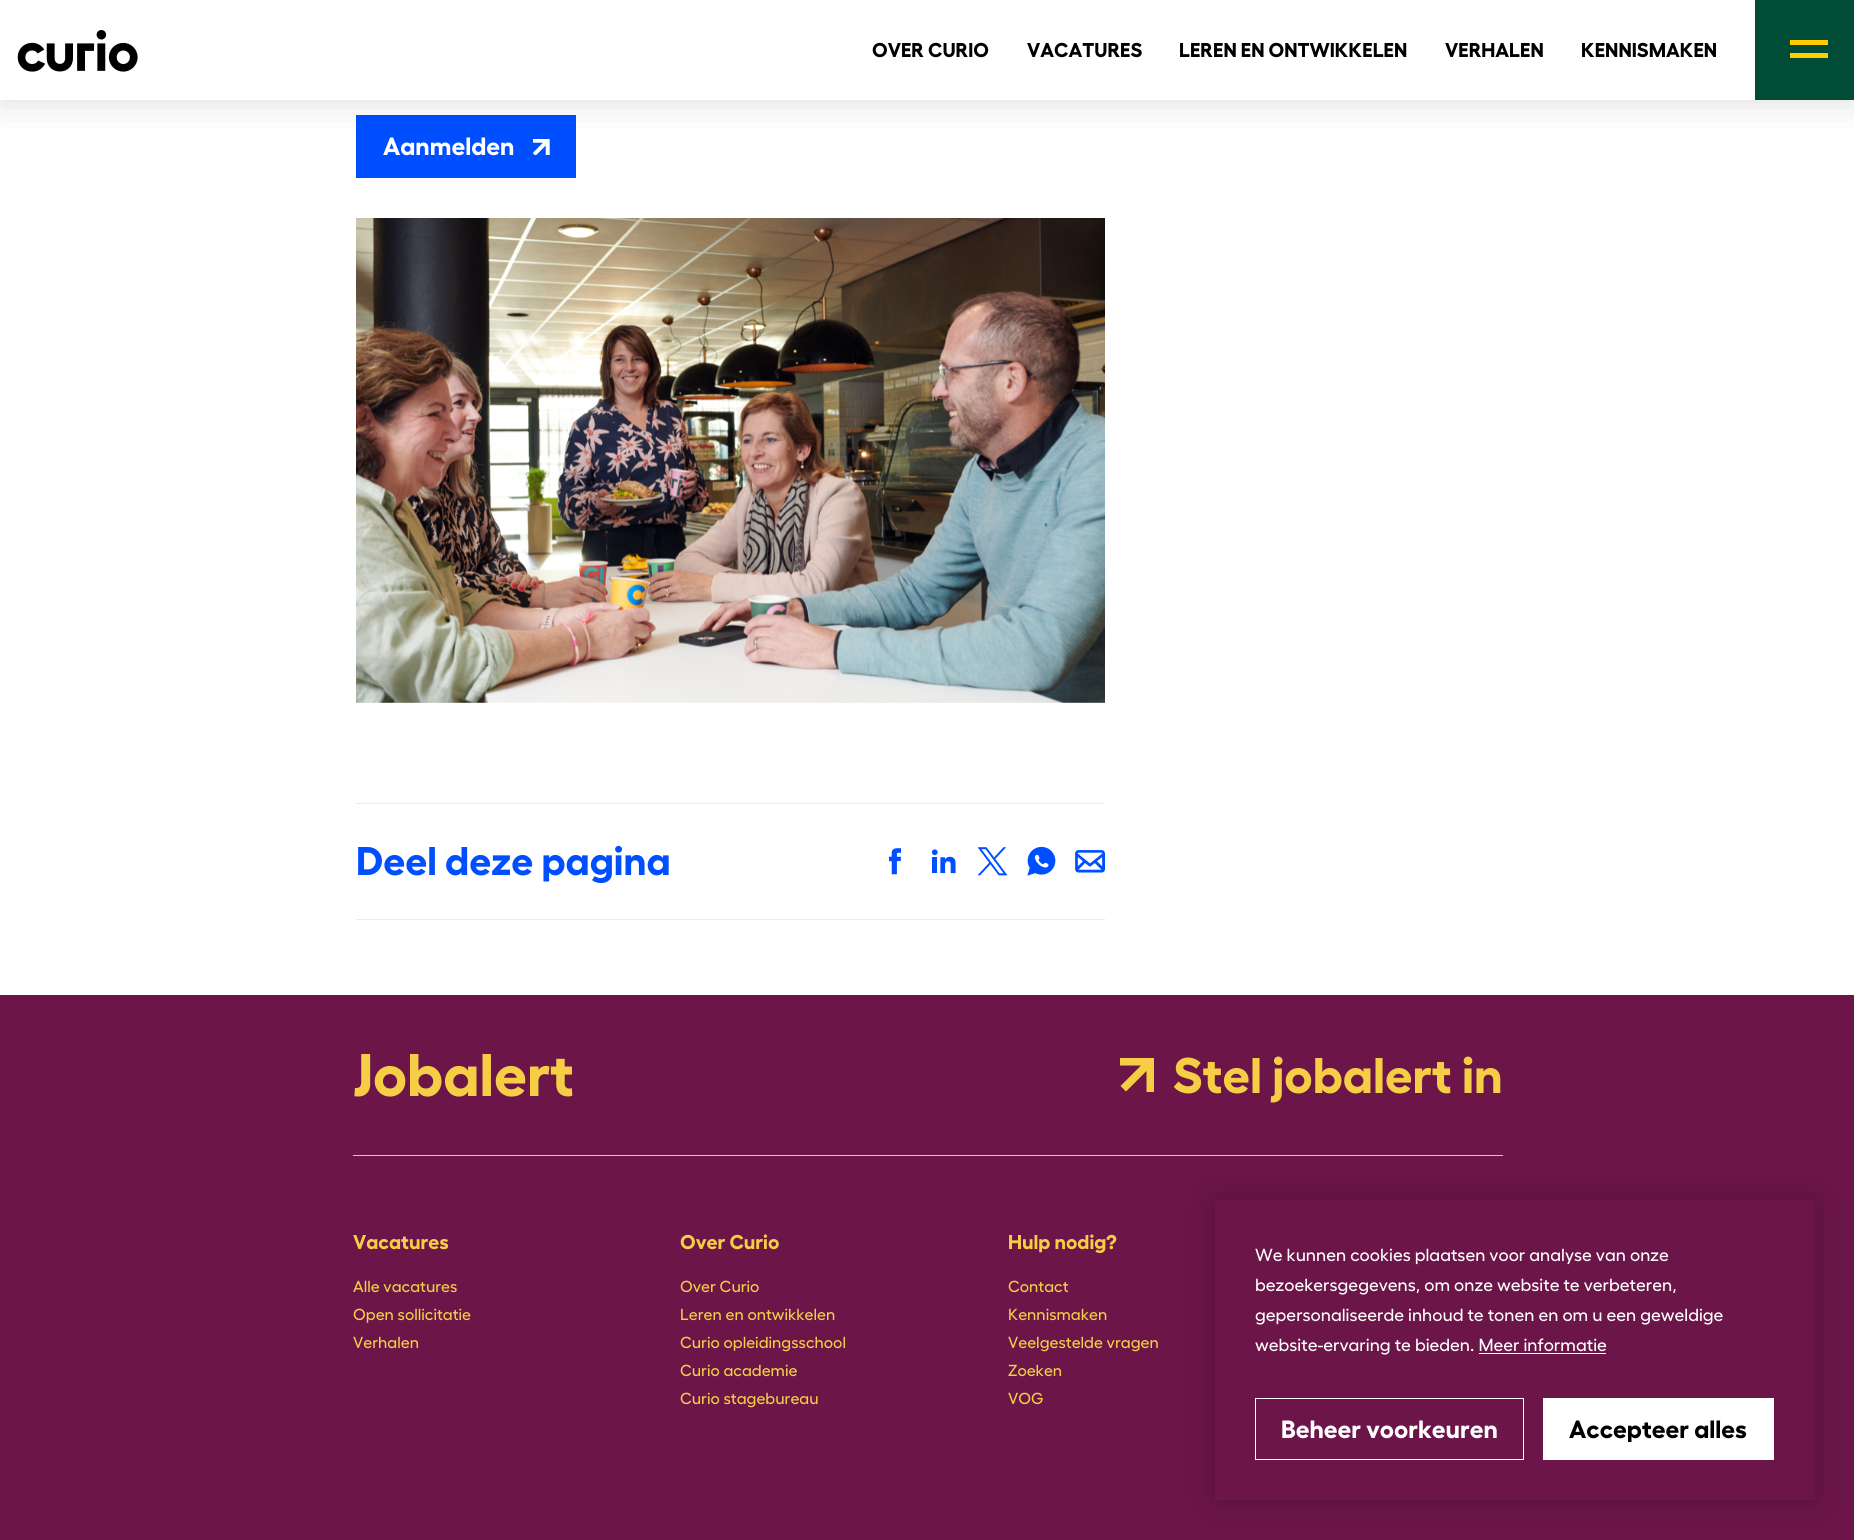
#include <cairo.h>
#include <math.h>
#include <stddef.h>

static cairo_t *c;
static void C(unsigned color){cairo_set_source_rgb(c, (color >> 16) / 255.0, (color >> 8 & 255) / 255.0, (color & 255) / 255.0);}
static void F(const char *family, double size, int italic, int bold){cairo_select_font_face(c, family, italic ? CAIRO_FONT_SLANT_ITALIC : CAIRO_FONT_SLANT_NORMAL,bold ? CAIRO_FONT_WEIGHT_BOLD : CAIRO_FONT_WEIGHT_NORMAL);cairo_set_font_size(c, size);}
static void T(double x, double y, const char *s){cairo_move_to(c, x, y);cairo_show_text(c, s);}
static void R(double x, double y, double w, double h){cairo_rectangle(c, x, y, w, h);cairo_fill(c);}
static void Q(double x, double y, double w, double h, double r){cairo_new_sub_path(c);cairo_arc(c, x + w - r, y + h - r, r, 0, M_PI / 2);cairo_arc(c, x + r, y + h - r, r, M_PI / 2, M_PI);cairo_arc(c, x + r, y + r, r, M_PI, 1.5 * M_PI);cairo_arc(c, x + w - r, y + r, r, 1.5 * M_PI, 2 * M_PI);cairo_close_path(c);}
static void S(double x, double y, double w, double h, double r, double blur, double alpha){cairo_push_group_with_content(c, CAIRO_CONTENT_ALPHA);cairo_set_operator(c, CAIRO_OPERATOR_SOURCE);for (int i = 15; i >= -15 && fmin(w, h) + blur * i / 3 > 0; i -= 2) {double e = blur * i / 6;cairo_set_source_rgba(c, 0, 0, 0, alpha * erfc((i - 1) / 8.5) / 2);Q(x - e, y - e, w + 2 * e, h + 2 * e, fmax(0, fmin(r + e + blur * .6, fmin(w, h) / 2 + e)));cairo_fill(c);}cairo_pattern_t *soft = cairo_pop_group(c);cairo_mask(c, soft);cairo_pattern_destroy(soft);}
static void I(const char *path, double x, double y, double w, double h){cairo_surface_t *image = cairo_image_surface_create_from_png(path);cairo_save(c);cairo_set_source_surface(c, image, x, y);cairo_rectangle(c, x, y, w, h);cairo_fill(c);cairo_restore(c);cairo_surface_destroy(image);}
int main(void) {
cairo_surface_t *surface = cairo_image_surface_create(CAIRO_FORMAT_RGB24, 1854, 1540);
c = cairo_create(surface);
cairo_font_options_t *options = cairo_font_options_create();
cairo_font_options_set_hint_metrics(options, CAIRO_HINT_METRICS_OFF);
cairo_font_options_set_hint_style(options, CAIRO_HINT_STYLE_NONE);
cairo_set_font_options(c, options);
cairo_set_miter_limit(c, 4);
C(0xffffff);
cairo_paint(c);
C(0x004fff);
R(356,115,220,63);
I("2.png",533,139,17,16);
C(0x000000);
S(0,0,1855,100,0,19,.15);
C(0xffffff);
R(0,0,1755,100);
I("1.png",17,30,121,42);
F("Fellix",20,0,1);
C(0x000000);
T(872,57,"OVER CURIO");
T(1027,57,"VACATURES");
T(1179,57,"LEREN EN ONTWIKKELEN");
T(1445,57,"VERHALEN");
T(1581,57,"KENNISMAKEN");
C(0x004c35);
R(1755,0,99,100);
C(0xffcc00);
R(1790,40,38,5);
R(1790,53,38,5);
F("Fellix",25,0,1);
C(0xffffff);
T(383,155,"Aanmelden");
I("3.png",356,218,749,485);
C(0xeaeaea);
R(356,803,749,1);
R(356,919,749,1);
F("Fellix",40,0,1);
C(0x004fff);
T(356,875,"Deel deze pagina");
I("4.png",889,848,12,27);
I("5.png",931,849,25,25);
I("6.png",978,847,30,29);
I("7.png",1027,846,29,30);
I("8.png",1075,850,30,23);
C(0x6c1549);
R(0,995,1854,545);
F("Fellix",60,0,1);
C(0xf5ce46);
T(353,1096,"Jobalert");
cairo_save(c);
cairo_rectangle(c,1120,1058,34,34);
cairo_clip(c);
cairo_set_fill_rule(c,CAIRO_FILL_RULE_EVEN_ODD);
cairo_new_path(c);
cairo_move_to(c,1141,1065.5);
cairo_line_to(c,1120,1065.5);
cairo_line_to(c,1120,1057.5);
cairo_line_to(c,1154.5,1057.5);
cairo_line_to(c,1154.5,1092);
cairo_line_to(c,1146.5,1092);
cairo_line_to(c,1146.5,1071);
cairo_line_to(c,1126,1091.5);
cairo_line_to(c,1120.5,1086);
cairo_close_path(c);
cairo_fill(c);
cairo_restore(c);
F("Fellix",50,0,1);
T(1173,1093,"Stel jobalert in");
R(353,1155,1150,1);
F("Fellix",20,0,1);
T(353,1249,"Vacatures");
F("Fellix Medium",16,0,0);
T(353,1292,"Alle vacatures");
T(353,1320,"Open sollicitatie");
T(353,1348,"Verhalen");
F("Fellix",20,0,1);
T(680,1249,"Over Curio");
F("Fellix Medium",16,0,0);
T(680,1292,"Over Curio");
T(680,1320,"Leren en ontwikkelen");
T(680,1348,"Curio opleidingsschool");
T(680,1376,"Curio academie");
T(680,1404,"Curio stagebureau");
F("Fellix",20,0,1);
T(1008,1249,"Hulp nodig?");
F("Fellix Medium",16,0,0);
T(1008,1292,"Contact");
T(1008,1320,"Kennismaken");
T(1008,1348,"Veelgestelde vragen");
T(1008,1376,"Zoeken");
T(1008,1404,"VOG");
C(0x000000);
S(1215,1200,600,300,0,19,.2);
C(0x6c1549);
R(1215,1200,600,300);
F("Fellix Medium",17.5,0,0);
C(0xffffff);
T(1255,1261,"We kunnen cookies plaatsen voor analyse van onze");
T(1255,1291,"bezoekersgegevens, om onze website te verbeteren,");
T(1255,1321,"gepersonaliseerde inhoud te tonen en om u een geweldige");
T(1255,1351,"website-ervaring te bieden. Meer informatie");
R(1479,1353,127,1);
cairo_rectangle(c,1255.5,1398.5,268,61);
cairo_set_line_width(c,1);
cairo_stroke(c);
F("Fellix",25,0,1);
T(1281,1438,"Beheer voorkeuren");
R(1543,1398,231,62);
C(0x000000);
T(1569,1438,"Accepteer alles");
cairo_surface_write_to_png(surface, "o.png");
cairo_font_options_destroy(options);
cairo_destroy(c);
cairo_surface_destroy(surface);
return 0;
}
